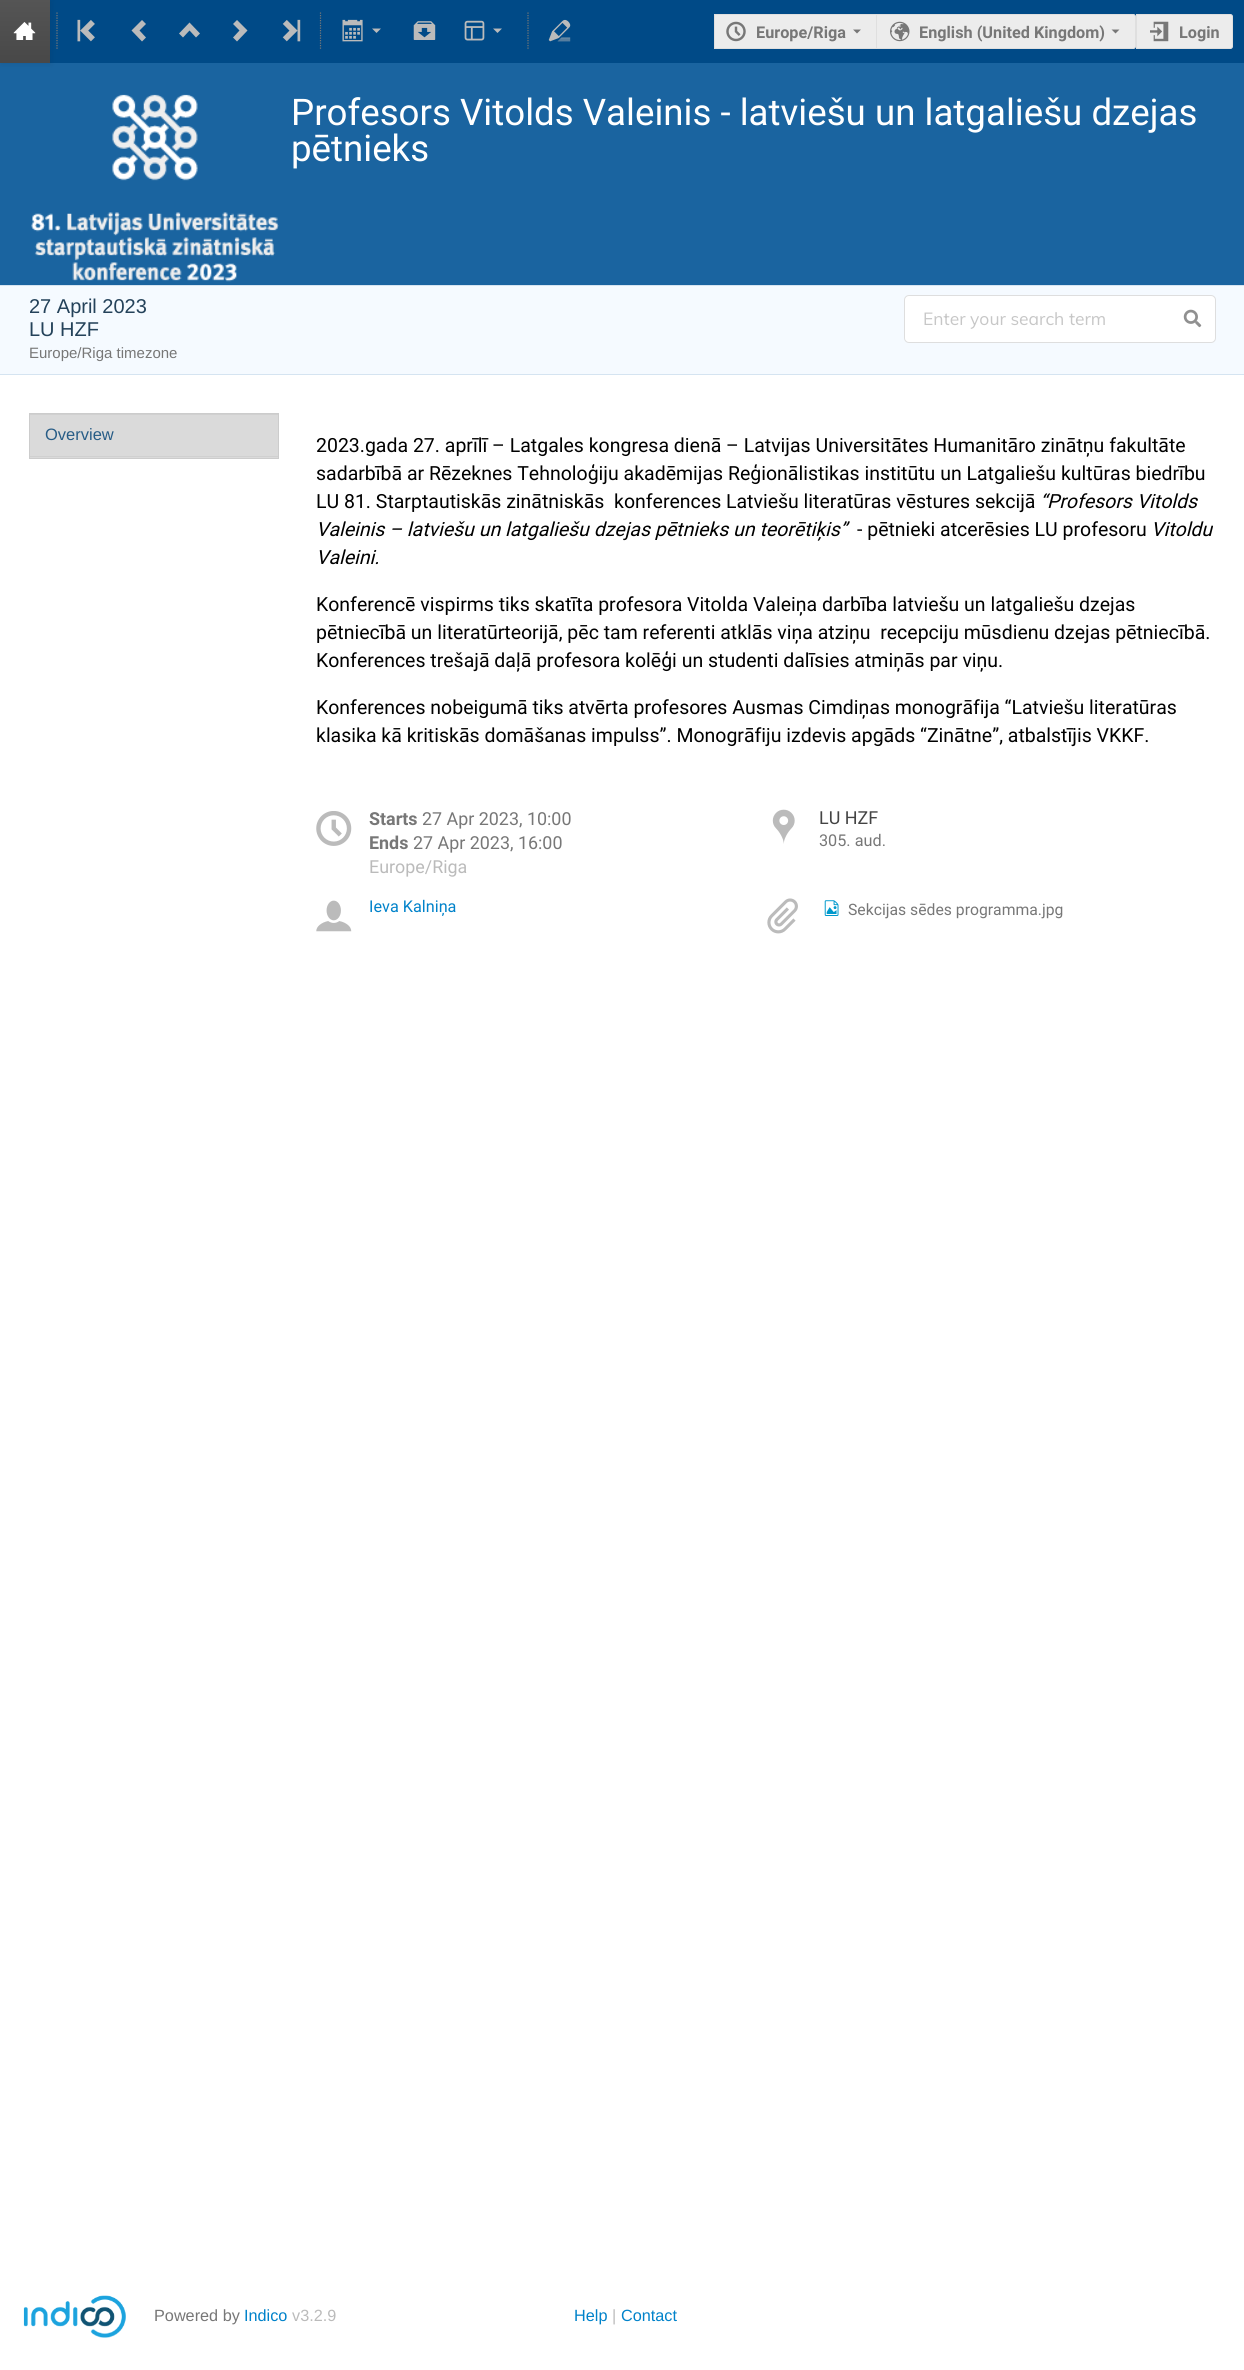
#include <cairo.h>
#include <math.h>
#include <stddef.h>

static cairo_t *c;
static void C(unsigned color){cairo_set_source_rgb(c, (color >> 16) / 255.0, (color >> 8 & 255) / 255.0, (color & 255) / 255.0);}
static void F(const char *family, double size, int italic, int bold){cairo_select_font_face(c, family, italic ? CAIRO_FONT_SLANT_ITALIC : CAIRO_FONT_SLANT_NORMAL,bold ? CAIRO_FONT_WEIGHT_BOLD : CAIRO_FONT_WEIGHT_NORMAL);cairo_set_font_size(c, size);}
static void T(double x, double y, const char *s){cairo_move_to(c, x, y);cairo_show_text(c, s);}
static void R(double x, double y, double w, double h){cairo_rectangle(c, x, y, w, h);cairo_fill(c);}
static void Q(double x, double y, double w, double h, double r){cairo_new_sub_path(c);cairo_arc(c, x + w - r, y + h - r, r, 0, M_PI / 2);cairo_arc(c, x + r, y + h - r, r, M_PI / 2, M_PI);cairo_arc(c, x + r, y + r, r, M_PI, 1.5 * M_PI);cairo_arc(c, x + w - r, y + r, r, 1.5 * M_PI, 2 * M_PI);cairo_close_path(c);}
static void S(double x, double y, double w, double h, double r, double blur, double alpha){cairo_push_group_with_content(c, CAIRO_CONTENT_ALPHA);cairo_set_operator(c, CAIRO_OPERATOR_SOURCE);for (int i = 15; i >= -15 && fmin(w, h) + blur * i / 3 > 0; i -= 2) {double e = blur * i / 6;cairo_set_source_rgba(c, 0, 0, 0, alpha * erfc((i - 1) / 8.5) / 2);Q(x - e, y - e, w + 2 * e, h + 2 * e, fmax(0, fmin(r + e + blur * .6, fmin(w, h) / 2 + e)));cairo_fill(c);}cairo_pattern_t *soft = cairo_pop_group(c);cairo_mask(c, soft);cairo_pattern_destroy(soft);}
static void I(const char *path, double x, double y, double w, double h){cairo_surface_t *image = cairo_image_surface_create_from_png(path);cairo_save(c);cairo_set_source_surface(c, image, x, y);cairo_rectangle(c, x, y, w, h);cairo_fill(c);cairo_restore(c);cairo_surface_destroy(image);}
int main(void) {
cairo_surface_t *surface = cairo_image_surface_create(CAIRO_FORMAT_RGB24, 1244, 2370);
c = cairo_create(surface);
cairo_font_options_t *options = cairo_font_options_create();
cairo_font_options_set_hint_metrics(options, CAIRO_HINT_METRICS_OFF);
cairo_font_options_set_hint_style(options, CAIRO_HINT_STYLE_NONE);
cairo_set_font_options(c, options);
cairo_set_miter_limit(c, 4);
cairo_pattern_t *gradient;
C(0xffffff);
cairo_paint(c);
C(0x004a87);
R(50,0,1194,63);
C(0x1a64a0);
R(0,63,1244,222);
C(0x141414);
S(1,1,50,63,0,2.5,.1);
gradient = cairo_pattern_create_linear(25,0,25,63);
cairo_pattern_add_color_stop_rgba(gradient,0,0.333,0.333,0.333,1);
cairo_pattern_add_color_stop_rgba(gradient,1,0.282,0.282,0.282,1);
cairo_set_source(c,gradient);
cairo_pattern_destroy(gradient);
R(0,0,50,63);
I("1.png",13,22,23,18);
cairo_new_path(c);
cairo_move_to(c,57,12.5);
cairo_line_to(c,57,50);
C(0x777777);
cairo_set_line_width(c,1.2);
cairo_set_dash(c,(double[]){1.25,1.25},2,0);
cairo_stroke(c);
I("2.png",77,19,18,23);
C(0xbbbbbb);
cairo_new_path(c);
cairo_move_to(c,142,41.5);
cairo_line_to(c,146,37.5);
cairo_line_to(c,139.5,30.5);
cairo_line_to(c,146,24);
cairo_line_to(c,142,20);
cairo_line_to(c,131.5,30.5);
cairo_close_path(c);
cairo_fill(c);
cairo_new_path(c);
cairo_move_to(c,179,33.5);
cairo_line_to(c,183,37.5);
cairo_line_to(c,189.5,30.5);
cairo_line_to(c,196,37.5);
cairo_line_to(c,200,33.5);
cairo_line_to(c,189.5,22.5);
cairo_close_path(c);
cairo_fill(c);
cairo_new_path(c);
cairo_move_to(c,237,20);
cairo_line_to(c,233,24);
cairo_line_to(c,239.5,30.5);
cairo_line_to(c,233,37.5);
cairo_line_to(c,237,41.5);
cairo_line_to(c,247.5,30.5);
cairo_close_path(c);
cairo_fill(c);
I("3.png",282,19,19,23);
cairo_new_path(c);
cairo_move_to(c,320.5,12.5);
cairo_line_to(c,320.5,50);
C(0x777777);
cairo_stroke(c);
I("4.png",342,19,21,23);
C(0xbbbbbb);
cairo_new_path(c);
cairo_move_to(c,372,28.5);
cairo_line_to(c,376.5,33);
cairo_line_to(c,381,28.5);
cairo_close_path(c);
cairo_fill(c);
I("5.png",413,21,23,19);
I("6.png",464,20,21,21);
cairo_new_path(c);
cairo_move_to(c,493,28.5);
cairo_line_to(c,497.5,33);
cairo_line_to(c,502,28.5);
cairo_close_path(c);
cairo_fill(c);
cairo_new_path(c);
cairo_move_to(c,528,12.5);
cairo_line_to(c,528,50);
C(0x777777);
cairo_stroke(c);
I("7.png",548,19,23,23);
C(0xececec);
R(715,15,161,33);
C(0xdfdfdf);
R(714,14,162,1);
R(714,48,162,1);
R(714,14,1,35);
I("8.png",726,21,20,21);
F("Roboto",16.25,0,1);
C(0x777777);
T(756,38,"Europe/Riga");
cairo_new_path(c);
cairo_move_to(c,853,29.5);
cairo_line_to(c,857,33.5);
cairo_line_to(c,861,29.5);
cairo_close_path(c);
cairo_fill(c);
C(0xececec);
cairo_new_path(c);
cairo_move_to(c,876.5,14.5);
cairo_line_to(c,1133.5,14.5);
cairo_curve_to(c,1134.5,14.5,1135.5,15.5,1135.5,16.5);
cairo_line_to(c,1135.5,46.5);
cairo_curve_to(c,1135.5,47.5,1134.5,48.5,1133.5,48.5);
cairo_line_to(c,876.5,48.5);
cairo_close_path(c);
cairo_fill_preserve(c);
C(0xdfdfdf);
cairo_set_line_width(c,1);
cairo_set_dash(c,NULL,0,0);
cairo_stroke(c);
I("9.png",890,21,20,21);
C(0x777777);
T(919,38,"English (United Kingdom)");
cairo_new_path(c);
cairo_move_to(c,1111.5,29.5);
cairo_line_to(c,1115.5,33.5);
cairo_line_to(c,1119.5,29.5);
cairo_close_path(c);
cairo_fill(c);
C(0xececec);
cairo_new_path(c);
cairo_move_to(c,1136.5,14.5);
cairo_line_to(c,1230.5,14.5);
cairo_curve_to(c,1231.5,14.5,1232.5,15.5,1232.5,16.5);
cairo_line_to(c,1232.5,46.5);
cairo_curve_to(c,1232.5,47.5,1231.5,48.5,1230.5,48.5);
cairo_line_to(c,1136.5,48.5);
cairo_close_path(c);
cairo_fill_preserve(c);
C(0xdfdfdf);
cairo_stroke(c);
I("10.png",1150,21,19,21);
C(0x777777);
T(1179,38,"Login");
I("11.png",31,94,248,188);
F("Roboto",36.7,0,0);
C(0xffffff);
T(291,125,"Profesors Vitolds Valeinis - latviešu un latgaliešu dzejas");
T(291,161,"pētnieks");
C(0xf5faff);
R(0,286,1244,88);
C(0xd5e4f1);
R(0,285,1244,1);
R(0,374,1244,1);
F("Liberation Sans",20,0,0);
C(0x24425a);
T(29,313,"27 April 2023");
T(29,336,"LU HZF");
F("Liberation Sans",15,0,0);
C(0x777777);
T(29,358,"Europe/Riga timezone");
C(0xffffff);
Q(904,295,312,48,5);
cairo_fill(c);
Q(904.5,295.5,311,47,4.5);
cairo_set_source_rgba(c,0.133,0.141,0.149,0.15);
cairo_stroke(c);
F("Mulish",17.5,0,0);
C(0xc7c7c7);
T(923,325,"Enter your search term");
I("12.png",1183,309,19,19);
cairo_rectangle(c,29.5,413.5,249,45);
C(0xcccccc);
cairo_stroke(c);
C(0xdadada);
R(30,415,248,43);
C(0xd0d0d0);
R(30,414,248,1);
R(30,456,248,1);
F("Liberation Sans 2",16.5,0,0);
C(0x275c86);
T(45,440,"Overview");
F("Roboto",19.5,0,0);
C(0x000000);
T(316,452,"2023.gada 27. aprīlī – Latgales kongresa dienā – Latvijas Universitātes Humanitāro zinātņu fakultāte");
T(316,480,"sadarbībā ar Rēzeknes Tehnoloģiju akadēmijas Reģionālistikas institūtu un Latgaliešu kultūras biedrību");
T(316,508,"LU 81. Starptautiskās zinātniskās  konferences Latviešu literatūras vēstures sekcijā");
F("Roboto",19.5,1,0);
T(1040,508,"“Profesors Vitolds");
T(316,536,"Valeinis – latviešu un latgaliešu dzejas pētnieks un teorētiķis”");
F("Roboto",19.5,0,0);
T(857,536,"- pētnieki atcerēsies LU profesoru");
F("Roboto",19.5,1,0);
T(1151,536,"Vitoldu");
T(316,564,"Valeini.");
F("Roboto",19.5,0,0);
T(316,611,"Konferencē vispirms tiks skatīta profesora Vitolda Valeiņa darbība latviešu un latgaliešu dzejas");
T(316,639,"pētniecībā un literatūrteorijā, pēc tam referenti atklās viņa atziņu  recepciju mūsdienu dzejas pētniecībā.");
T(316,667,"Konferences trešajā daļā profesora kolēģi un studenti dalīsies atmiņās par viņu.");
T(316,714,"Konferences nobeigumā tiks atvērta profesores Ausmas Cimdiņas monogrāfija “Latviešu literatūras");
T(316,742,"klasika kā kritiskās domāšanas impulss”. Monogrāfiju izdevis apgāds “Zinātne”, atbalstījis VKKF.");
I("13.png",316,811,36,35);
F("Roboto",17.9,0,1);
C(0x777777);
T(369,825,"Starts");
F("Roboto",17.9,0,0);
T(422,825,"27 Apr 2023, 10:00");
F("Roboto",17.9,0,1);
T(369,849,"Ends");
F("Roboto",17.9,0,0);
T(413,849,"27 Apr 2023, 16:00");
C(0xbbbbbb);
T(369,873,"Europe/Riga");
I("14.png",772,809,23,35);
C(0x444444);
T(819,824,"LU HZF");
F("Roboto",16.25,0,0);
C(0x777777);
T(819,846,"305. aud.");
I("15.png",316,900,36,32);
C(0x0082ca);
T(369,912,"Ieva Kalniņa");
I("16.png",767,898,31,36);
I("17.png",824,900,15,16);
F("Roboto",15.75,0,0);
C(0x777777);
T(848,915,"Sekcijas sēdes programma.jpg");
I("18.png",23,2295,103,43);
F("Liberation Sans",16.25,0,0);
T(154,2321,"Powered by");
C(0x0082ca);
T(244,2321,"Indico");
C(0xbbbbbb);
T(292,2321,"v3.2.9");
C(0x0082ca);
T(574,2321,"Help");
C(0xbbbbbb);
T(612,2321,"|");
C(0x0082ca);
T(621,2321,"Contact");
cairo_surface_write_to_png(surface, "o.png");
cairo_font_options_destroy(options);
cairo_destroy(c);
cairo_surface_destroy(surface);
return 0;
}
